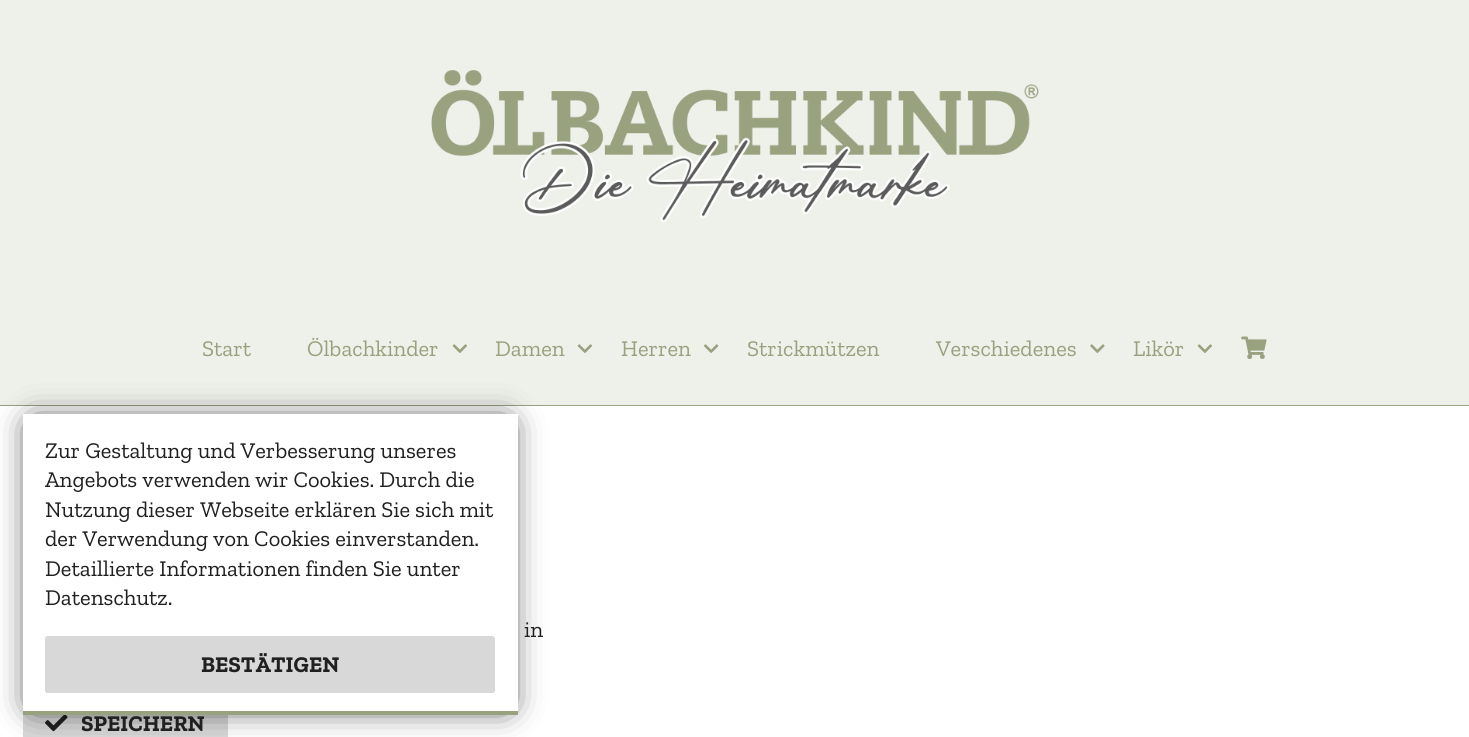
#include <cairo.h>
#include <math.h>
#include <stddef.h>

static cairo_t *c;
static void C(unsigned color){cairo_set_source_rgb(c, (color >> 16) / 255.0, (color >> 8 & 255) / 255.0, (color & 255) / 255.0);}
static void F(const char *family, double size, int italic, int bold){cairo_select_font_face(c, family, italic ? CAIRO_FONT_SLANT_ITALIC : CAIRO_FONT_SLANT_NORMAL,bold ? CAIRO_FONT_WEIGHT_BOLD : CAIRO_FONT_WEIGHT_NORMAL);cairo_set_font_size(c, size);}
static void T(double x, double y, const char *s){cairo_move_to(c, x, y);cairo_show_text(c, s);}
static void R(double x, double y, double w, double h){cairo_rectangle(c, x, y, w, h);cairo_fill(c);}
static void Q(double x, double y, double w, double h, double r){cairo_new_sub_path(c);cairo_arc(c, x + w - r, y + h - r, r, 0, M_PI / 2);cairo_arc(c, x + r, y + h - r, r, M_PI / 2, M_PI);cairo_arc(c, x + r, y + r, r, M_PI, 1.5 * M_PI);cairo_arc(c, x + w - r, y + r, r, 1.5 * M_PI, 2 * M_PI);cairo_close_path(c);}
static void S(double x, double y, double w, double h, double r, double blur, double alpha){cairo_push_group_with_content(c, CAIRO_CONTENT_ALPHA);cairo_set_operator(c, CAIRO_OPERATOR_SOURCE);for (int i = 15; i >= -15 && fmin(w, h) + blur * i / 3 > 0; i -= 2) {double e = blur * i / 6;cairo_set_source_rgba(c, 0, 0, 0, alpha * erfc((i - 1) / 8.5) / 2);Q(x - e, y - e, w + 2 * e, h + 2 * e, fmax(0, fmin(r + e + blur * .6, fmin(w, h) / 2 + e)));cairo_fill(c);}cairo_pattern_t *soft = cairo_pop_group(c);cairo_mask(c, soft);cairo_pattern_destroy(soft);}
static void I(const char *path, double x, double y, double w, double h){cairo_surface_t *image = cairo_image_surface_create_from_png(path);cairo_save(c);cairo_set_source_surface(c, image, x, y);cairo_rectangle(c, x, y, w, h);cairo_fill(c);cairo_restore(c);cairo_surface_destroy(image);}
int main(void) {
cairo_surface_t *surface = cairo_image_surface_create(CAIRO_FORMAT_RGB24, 1469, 737);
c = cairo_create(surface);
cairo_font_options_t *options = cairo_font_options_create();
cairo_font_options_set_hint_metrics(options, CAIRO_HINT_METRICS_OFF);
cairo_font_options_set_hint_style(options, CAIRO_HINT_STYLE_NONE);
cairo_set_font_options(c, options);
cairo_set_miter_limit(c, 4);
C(0xffffff);
cairo_paint(c);
C(0xeef0ea);
R(0,0,1469,405);
C(0x98a27f);
R(0,405,1469,1);
I("1.png",431,70,608,153);
F("Zilla Slab",22.5,0,0);
T(202,356,"Start");
T(307,356,"Ölbachkinder");
I("2.png",452,344,15,9);
T(495,356,"Damen");
I("2.png",577,344,15,9);
T(621,356,"Herren");
I("3.png",704,344,15,9);
T(747,356,"Strickmützen");
T(936,356,"Verschiedenes");
I("4.png",1090,344,15,9);
T(1133,356,"Likör");
I("2.png",1197,344,15,9);
I("5.png",1241,336,26,23);
C(0xd8d8d8);
R(23,715,205,22);
I("6.png",45,715,23,17);
C(0x000000);
S(34,425,472,279,0,17,1);
C(0xffffff);
R(23,414,495,297);
C(0x202020);
T(45,458,"Zur Gestaltung und Verbesserung unseres");
T(45,487,"Angebots verwenden wir Cookies. Durch die");
T(45,517,"Nutzung dieser Webseite erklären Sie sich mit");
T(45,546,"der Verwendung von Cookies einverstanden.");
T(45,576,"Detaillierte Informationen finden Sie unter");
T(45,605,"Datenschutz.");
C(0xd8d8d8);
Q(45,636,450,57,2.5);
cairo_fill(c);
F("Zilla Slab",22.5,0,1);
C(0x202020);
T(201,672,"BESTÄTIGEN");
C(0x98a27f);
R(23,711,495,4);
F("Zilla Slab",22.5,0,0);
C(0x202020);
T(524,637,"in");
F("Zilla Slab",22.5,0,1);
T(81,731,"SPEICHERN");
cairo_surface_write_to_png(surface, "o.png");
cairo_font_options_destroy(options);
cairo_destroy(c);
cairo_surface_destroy(surface);
return 0;
}
